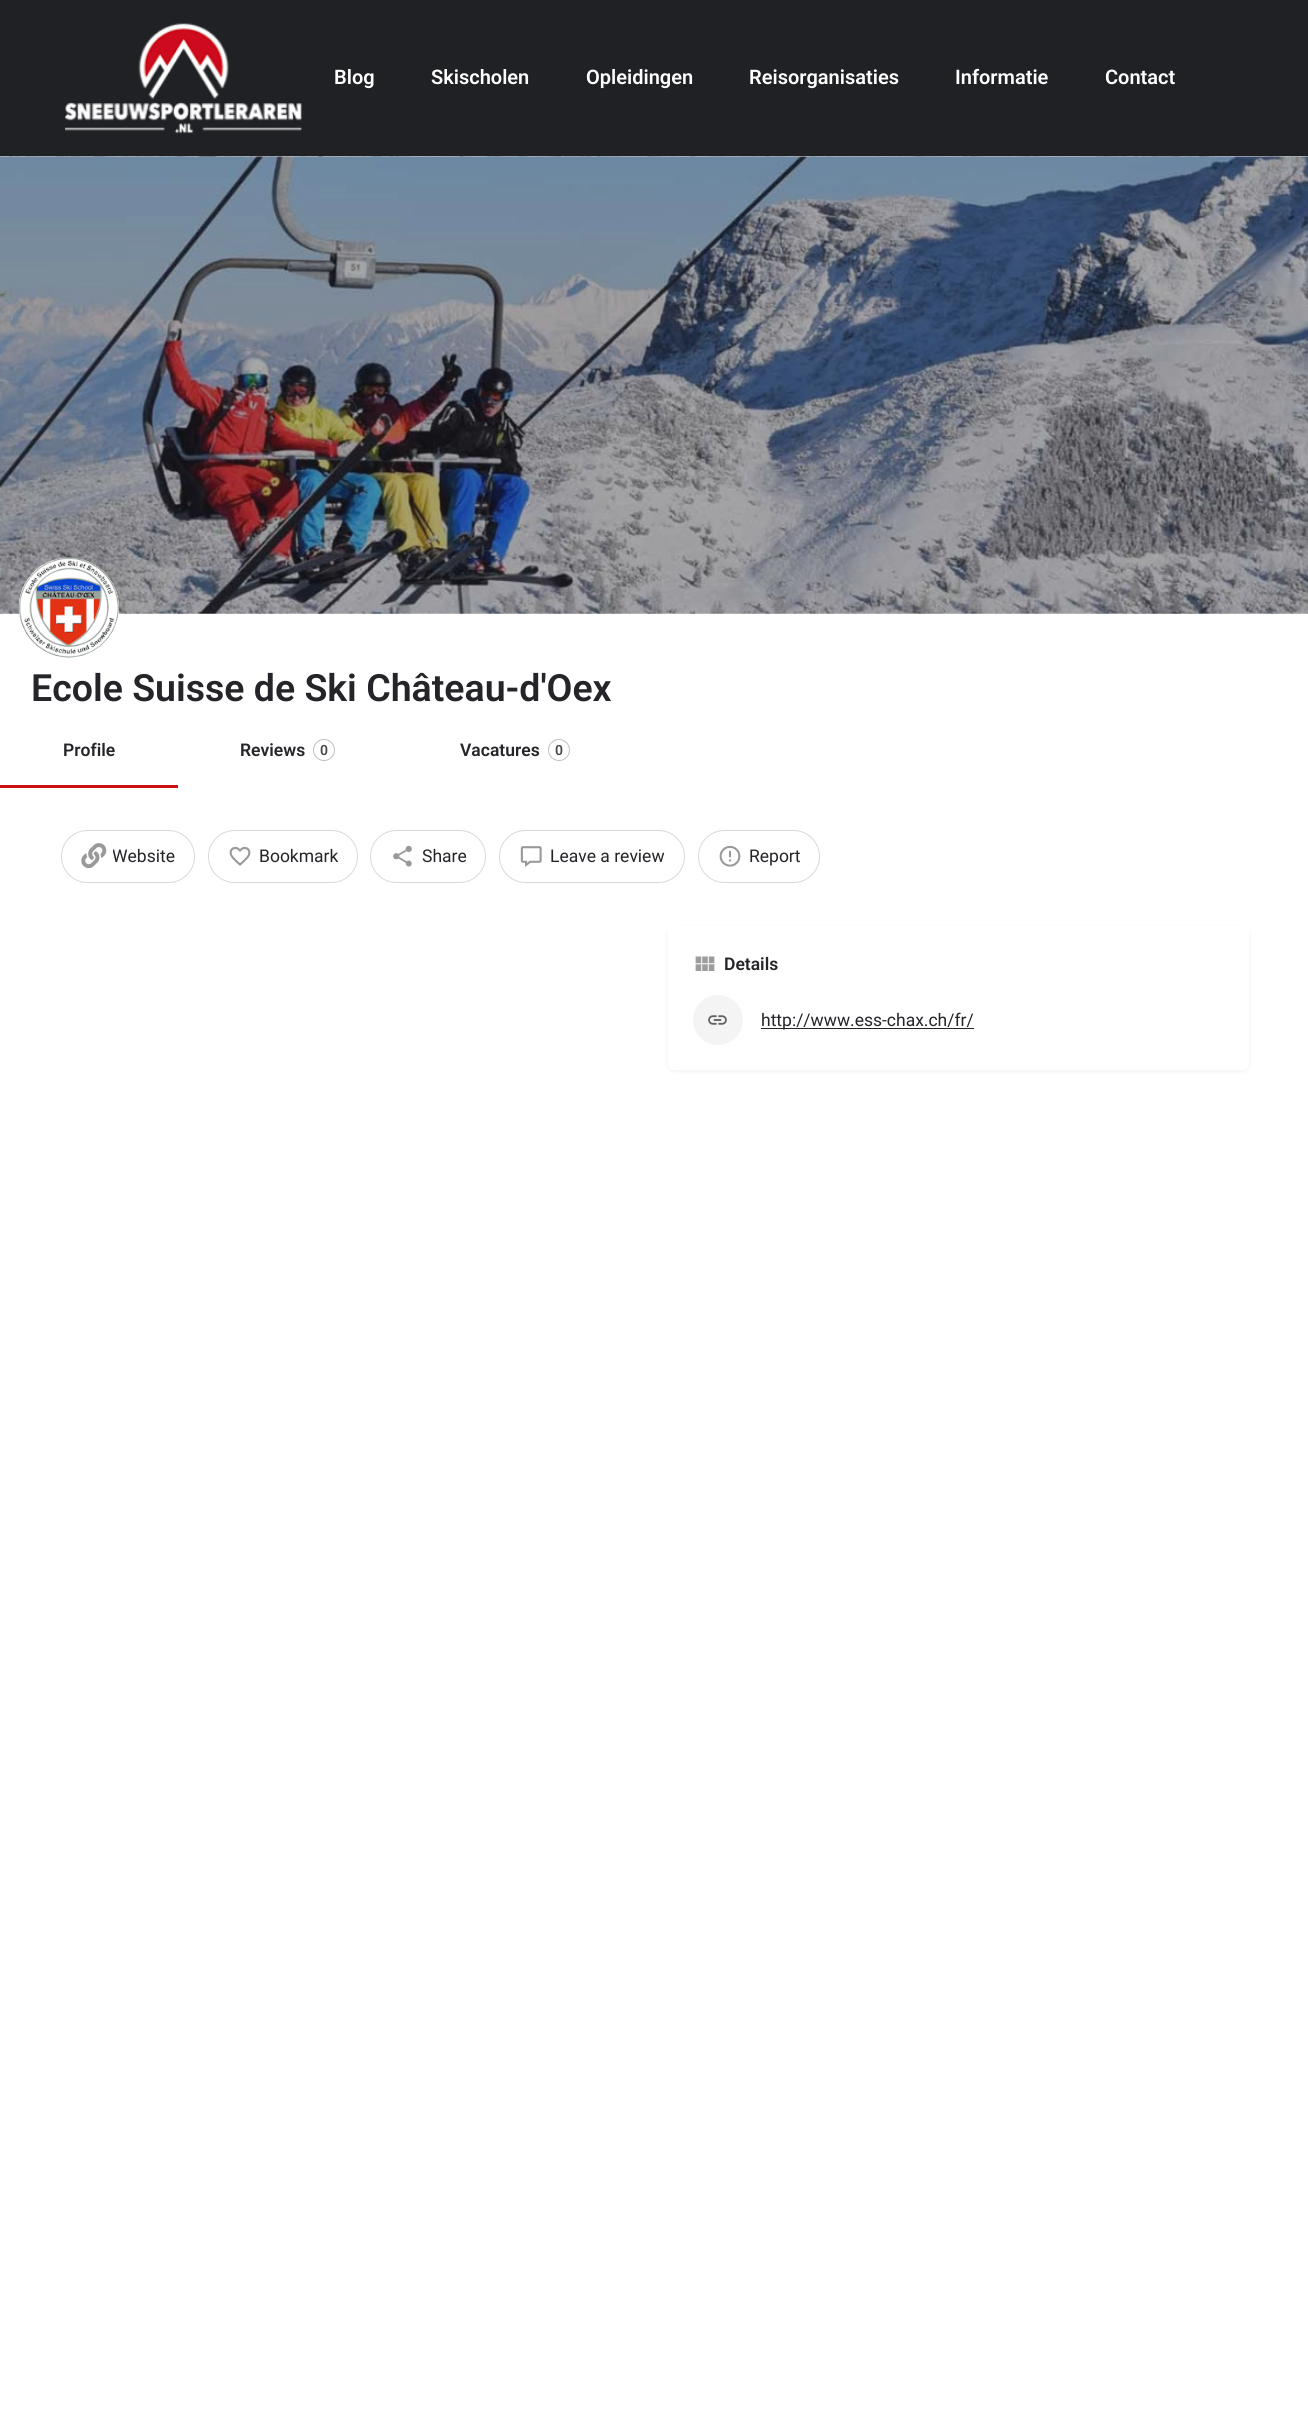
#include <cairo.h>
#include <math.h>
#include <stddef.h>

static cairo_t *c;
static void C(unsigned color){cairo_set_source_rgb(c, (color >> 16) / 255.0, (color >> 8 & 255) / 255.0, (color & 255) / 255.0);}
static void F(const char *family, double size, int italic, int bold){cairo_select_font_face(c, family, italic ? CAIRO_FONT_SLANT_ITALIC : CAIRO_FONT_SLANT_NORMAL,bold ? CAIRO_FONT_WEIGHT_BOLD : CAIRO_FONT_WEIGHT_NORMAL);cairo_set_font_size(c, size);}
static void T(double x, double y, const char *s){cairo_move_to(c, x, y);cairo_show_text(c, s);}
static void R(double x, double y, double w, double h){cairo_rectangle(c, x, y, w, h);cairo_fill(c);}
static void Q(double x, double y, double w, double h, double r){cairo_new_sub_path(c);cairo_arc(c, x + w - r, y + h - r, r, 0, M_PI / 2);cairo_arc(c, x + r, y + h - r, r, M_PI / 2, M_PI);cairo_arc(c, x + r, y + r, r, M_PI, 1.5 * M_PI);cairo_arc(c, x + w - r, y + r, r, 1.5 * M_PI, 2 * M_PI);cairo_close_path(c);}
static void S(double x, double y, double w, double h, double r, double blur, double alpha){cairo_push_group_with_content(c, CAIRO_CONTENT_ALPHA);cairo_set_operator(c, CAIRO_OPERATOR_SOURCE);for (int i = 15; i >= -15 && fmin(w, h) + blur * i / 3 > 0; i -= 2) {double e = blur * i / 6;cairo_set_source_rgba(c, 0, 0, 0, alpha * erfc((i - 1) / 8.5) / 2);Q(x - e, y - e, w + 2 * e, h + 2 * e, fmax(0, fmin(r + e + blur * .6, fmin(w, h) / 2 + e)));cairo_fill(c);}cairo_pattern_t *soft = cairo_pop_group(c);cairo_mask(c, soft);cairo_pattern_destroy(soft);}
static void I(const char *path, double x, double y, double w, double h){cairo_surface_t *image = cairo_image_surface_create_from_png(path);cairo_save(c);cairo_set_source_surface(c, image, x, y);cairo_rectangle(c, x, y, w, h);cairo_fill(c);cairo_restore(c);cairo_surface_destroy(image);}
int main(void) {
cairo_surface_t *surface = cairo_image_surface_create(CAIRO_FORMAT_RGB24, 1308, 2428);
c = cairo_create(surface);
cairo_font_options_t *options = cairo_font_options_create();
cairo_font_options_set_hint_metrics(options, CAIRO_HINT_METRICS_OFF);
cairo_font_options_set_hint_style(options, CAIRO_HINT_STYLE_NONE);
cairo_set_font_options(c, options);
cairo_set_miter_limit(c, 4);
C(0xffffff);
cairo_paint(c);
C(0x202125);
R(0,0,1308,156);
I("1.png",65,23,237,111);
F("Roboto SemiBold",20,0,0);
C(0xffffff);
T(334,84,"Blog");
T(431,84,"Skischolen");
T(586,84,"Opleidingen");
T(749,84,"Reisorganisaties");
T(955,84,"Informatie");
T(1105,84,"Contact");
I("2.png",0,156,1308,458);
cairo_arc(c,69,608,50,0,2 * M_PI);
cairo_fill(c);
I("3.png",18,557,101,101);
F("Roboto SemiBold",37.5,0,0);
C(0x242429);
T(31,701,"Ecole Suisse de Ski Château-d'Oex");
F("Roboto SemiBold",17.5,0,0);
T(63,756,"Profile");
C(0xcc0f14);
R(0,785,178,3);
C(0x242429);
T(240,756,"Reviews");
cairo_new_path(c);
cairo_arc(c,324,750,10.5,0,2 * M_PI);
C(0xbac1c1);
cairo_set_line_width(c,1);
cairo_stroke(c);
F("Roboto SemiBold",14,0,0);
C(0x484848);
T(320,755,"0");
F("Roboto SemiBold",17.5,0,0);
C(0x242429);
T(460,756,"Vacatures");
cairo_new_path(c);
cairo_arc(c,559,750,10.5,0,2 * M_PI);
C(0xbac1c1);
cairo_stroke(c);
F("Roboto SemiBold",14,0,0);
C(0x484848);
T(555,755,"0");
Q(61.5,830.5,133,52,26);
C(0xd9d9d9);
cairo_stroke(c);
I("4.png",81,843,26,26);
cairo_save(c);
cairo_rectangle(c,113,844,62,25);
cairo_clip(c);
F("Roboto",17.5,0,0);
C(0x242429);
T(112,862,"Website");
cairo_restore(c);
Q(208.5,830.5,149,52,26);
cairo_stroke(c);
I("5.png",229,846,22,20);
F("Roboto",17.5,0,0);
C(0x242429);
T(259,862,"Bookmark");
Q(370.5,830.5,115,52,26);
C(0xd9d9d9);
cairo_stroke(c);
I("6.png",393,845,19,22);
C(0x242429);
T(422,862,"Share");
Q(499.5,830.5,185,52,26);
C(0xd9d9d9);
cairo_stroke(c);
I("7.png",520,846,22,21);
C(0x242429);
T(550,862,"Leave a review");
Q(698.5,830.5,121,52,26);
C(0xd9d9d9);
cairo_stroke(c);
I("8.png",719,845,22,22);
C(0x242429);
T(749,862,"Report");
C(0x000000);
S(668,928,581,143,6,2.5,.07);
C(0xffffff);
Q(668,926,581,144,6);
cairo_fill(c);
I("9.png",695,956,20,15);
F("Roboto SemiBold",17.5,0,0);
C(0x242429);
T(724,970,"Details");
C(0xf4f4f4);
cairo_new_path(c);
cairo_arc(c,718,1020,25,0,2 * M_PI);
cairo_fill(c);
I("10.png",708,1015,19,10);
C(0x242429);
R(761,1028,213,1);
F("Roboto",17.5,0,0);
T(761,1026,"http://www.ess-chax.ch/fr/");
cairo_surface_write_to_png(surface, "o.png");
cairo_font_options_destroy(options);
cairo_destroy(c);
cairo_surface_destroy(surface);
return 0;
}
